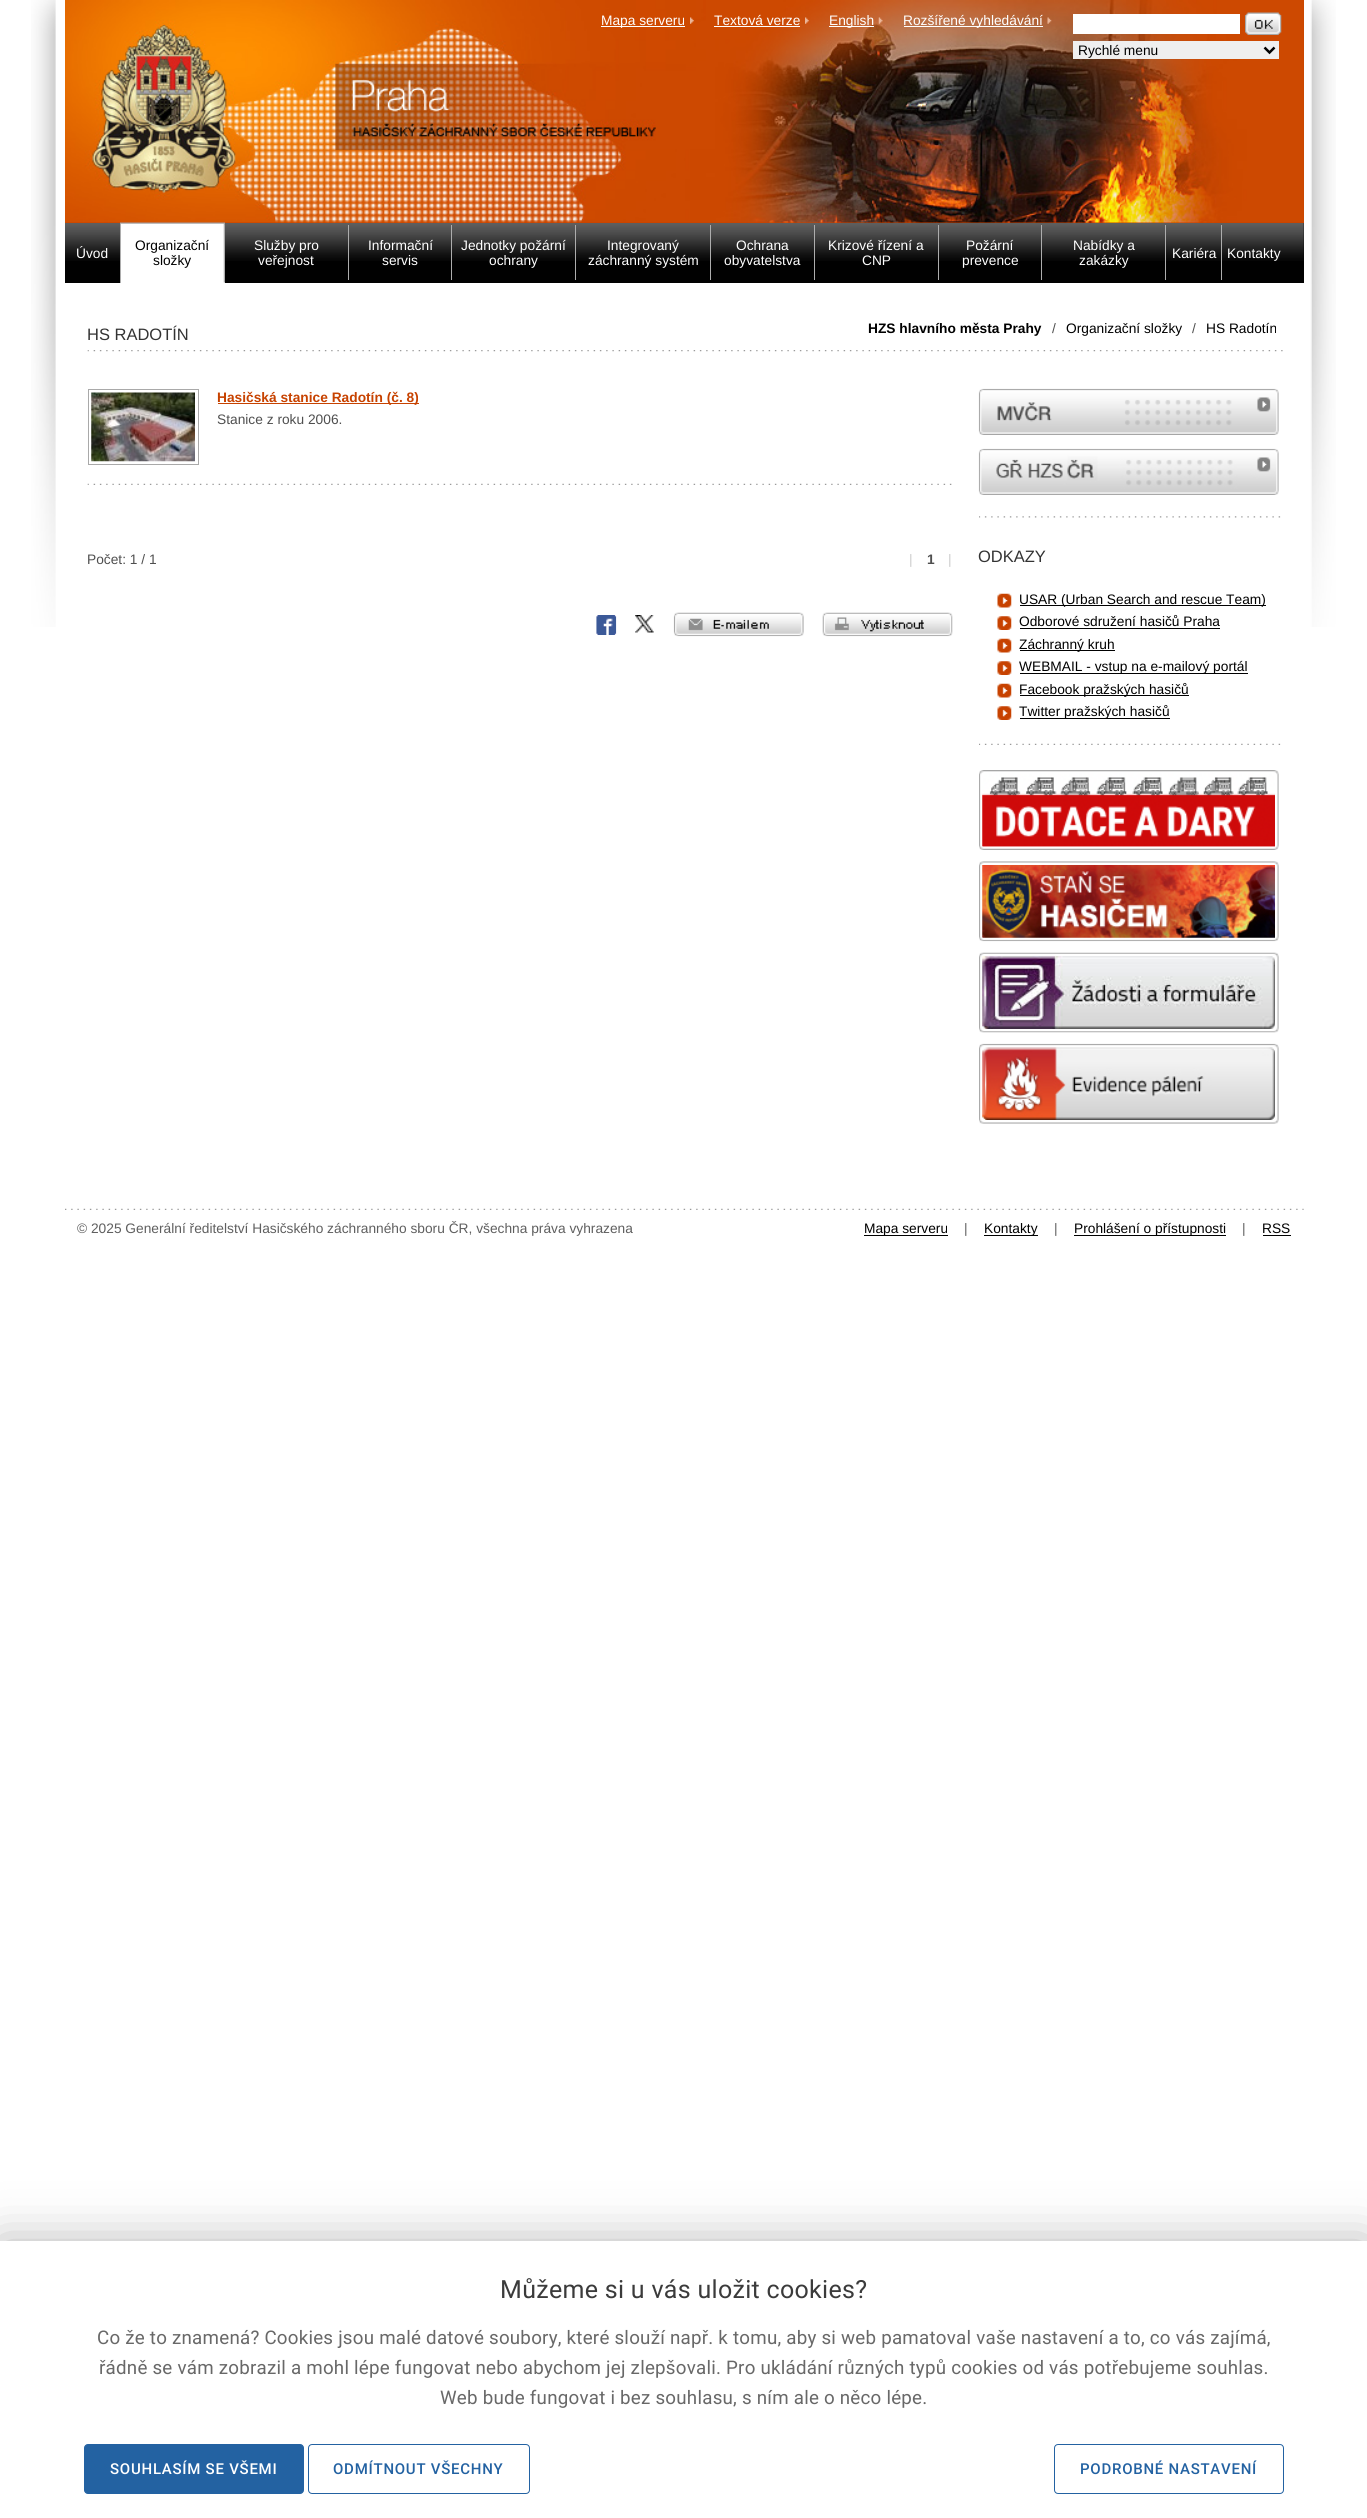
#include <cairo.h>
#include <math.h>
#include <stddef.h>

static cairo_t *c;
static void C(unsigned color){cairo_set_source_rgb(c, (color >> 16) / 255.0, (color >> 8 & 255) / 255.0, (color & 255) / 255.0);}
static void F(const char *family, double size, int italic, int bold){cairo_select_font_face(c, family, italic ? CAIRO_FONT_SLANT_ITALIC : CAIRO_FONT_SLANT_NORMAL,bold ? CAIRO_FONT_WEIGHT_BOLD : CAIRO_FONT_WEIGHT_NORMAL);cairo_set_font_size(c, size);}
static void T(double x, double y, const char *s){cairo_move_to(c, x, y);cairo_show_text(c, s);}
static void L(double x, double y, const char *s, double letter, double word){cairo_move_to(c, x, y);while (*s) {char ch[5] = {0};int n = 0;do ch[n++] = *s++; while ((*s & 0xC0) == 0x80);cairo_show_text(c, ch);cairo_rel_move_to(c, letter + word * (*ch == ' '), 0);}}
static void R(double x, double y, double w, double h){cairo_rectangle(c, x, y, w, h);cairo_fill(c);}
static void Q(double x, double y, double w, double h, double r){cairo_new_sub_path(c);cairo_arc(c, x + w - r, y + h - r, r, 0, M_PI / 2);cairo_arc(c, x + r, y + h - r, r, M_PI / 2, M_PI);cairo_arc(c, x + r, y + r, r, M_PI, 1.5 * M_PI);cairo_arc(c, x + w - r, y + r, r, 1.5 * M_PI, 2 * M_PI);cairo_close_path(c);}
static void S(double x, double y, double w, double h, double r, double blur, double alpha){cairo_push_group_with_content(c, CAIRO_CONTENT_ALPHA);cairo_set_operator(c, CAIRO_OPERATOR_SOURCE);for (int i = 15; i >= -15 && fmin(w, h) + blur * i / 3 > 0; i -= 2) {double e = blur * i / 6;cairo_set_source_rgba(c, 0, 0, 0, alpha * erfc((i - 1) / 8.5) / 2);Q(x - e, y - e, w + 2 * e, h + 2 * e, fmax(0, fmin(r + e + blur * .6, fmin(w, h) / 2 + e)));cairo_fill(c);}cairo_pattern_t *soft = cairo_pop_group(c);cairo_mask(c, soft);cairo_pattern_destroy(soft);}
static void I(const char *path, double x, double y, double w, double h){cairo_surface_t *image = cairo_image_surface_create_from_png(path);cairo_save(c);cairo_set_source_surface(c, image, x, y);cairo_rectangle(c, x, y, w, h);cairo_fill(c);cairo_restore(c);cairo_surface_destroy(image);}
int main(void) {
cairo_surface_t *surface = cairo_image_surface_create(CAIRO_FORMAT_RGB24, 1367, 2518);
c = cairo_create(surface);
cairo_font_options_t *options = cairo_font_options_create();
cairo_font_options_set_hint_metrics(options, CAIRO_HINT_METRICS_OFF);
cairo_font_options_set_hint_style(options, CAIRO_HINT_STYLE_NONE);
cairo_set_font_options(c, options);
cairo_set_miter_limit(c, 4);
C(0xffffff);
cairo_paint(c);
I("1.png",31,0,1305,627);
C(0xc74200);
R(65,0,1239,223);
I("2.png",65,0,1239,223);
C(0xffffff);
R(601,26,84,1);
F("Liberation Sans",13.75,0,0);
T(601,25,"Mapa serveru");
I("3.png",690,17,4,7);
T(714,25,"Textová verze");
R(714,26,86,1);
I("4.png",805,17,4,7);
R(829,26,45,1);
T(829,25,"English");
I("5.png",878,17,5,7);
R(904,26,139,1);
T(903,25,"Rozšířené vyhledávání");
I("6.png",1047,17,5,7);
R(1073,14,167,20);
I("7.png",1245,12,37,23);
C(0xefefef);
R(1073,41,206,18);
cairo_new_path(c);
cairo_move_to(c,1264.5,47.5);
cairo_line_to(c,1269.5,52.5);
cairo_line_to(c,1274.5,47.5);
C(0x000000);
cairo_set_line_width(c,2.5);
cairo_stroke(c);
T(1078,55,"Rychlé menu");
C(0x010101);
R(65,223,1239,60);
I("8.png",65,223,1239,38);
C(0xffffff);
T(76,258,"Úvod");
R(121,223,104,60);
I("9.png",120,222,105,61);
C(0xadadad);
R(120,223,1,60);
C(0x000000);
T(135,250,"Organizační");
T(153,265,"složky");
C(0xadadad);
R(224,225,1,55);
C(0xffffff);
T(254,250,"Služby pro");
T(258,265,"veřejnost");
C(0xadadad);
R(348,225,1,55);
C(0xffffff);
T(368,250,"Informační");
T(382,265,"servis");
C(0xadadad);
R(451,225,1,55);
C(0xffffff);
T(461,250,"Jednotky požární");
T(489,265,"ochrany");
C(0xadadad);
R(575,225,1,55);
C(0xffffff);
T(607,250,"Integrovaný");
T(588,265,"záchranný systém");
C(0xadadad);
R(710,225,1,55);
C(0xffffff);
T(736,250,"Ochrana");
T(724,265,"obyvatelstva");
C(0xadadad);
R(814,225,1,55);
C(0xffffff);
T(828,250,"Krizové řízení a");
T(862,265,"CNP");
C(0xadadad);
R(938,225,1,55);
C(0xffffff);
T(966,250,"Požární");
T(962,265,"prevence");
C(0xadadad);
R(1041,225,1,55);
C(0xffffff);
T(1073,250,"Nabídky a");
T(1079,265,"zakázky");
C(0xadadad);
R(1165,225,1,55);
C(0xffffff);
T(1172,258,"Kariéra");
C(0xadadad);
R(1221,225,1,55);
C(0xffffff);
T(1227,258,"Kontakty");
I("10.png",87,350,1196,2);
F("Liberation Sans",16.5,0,0);
C(0x333333);
T(87,340,"HS RADOTÍN");
F("Liberation Sans",13.75,0,1);
C(0x000000);
T(868,333,"HZS hlavního města Prahy");
F("Liberation Sans",13.75,0,0);
C(0x4f4f4f);
T(1052,333,"/");
C(0x000000);
T(1066,333,"Organizační složky");
C(0x4f4f4f);
T(1192,333,"/");
C(0x000000);
T(1206,333,"HS Radotín");
I("11.png",87,483,865,2);
cairo_rectangle(c,88.5,389.5,110,75);
C(0xa9a9a9);
cairo_set_line_width(c,1);
cairo_stroke(c);
I("12.png",91,392,104,70);
C(0xc74200);
R(218,403,201,1);
F("Liberation Sans",13.75,0,1);
T(217,402,"Hasičská stanice Radotín (č. 8)");
F("Liberation Sans",13.75,0,0);
C(0x4f4f4f);
T(217,424,"Stanice z roku 2006.");
T(87,564,"Počet: 1 / 1");
C(0xcccccc);
T(909,564,"|");
F("Liberation Sans",13.75,0,1);
C(0x4f4f4f);
T(927,564,"1");
F("Liberation Sans",13.75,0,0);
C(0xcccccc);
T(948,564,"|");
I("13.png",596,615,21,20);
I("14.png",635,615,19,18);
I("15.png",673,612,131,25);
I("16.png",822,612,131,25);
I("17.png",979,516,302,2);
I("18.png",978,388,301,47);
I("19.png",978,448,301,47);
F("Liberation Sans",16.5,0,0);
C(0x333333);
T(978,562,"ODKAZY");
I("20.png",979,743,302,2);
I("21.png",997,593,15,15);
C(0x000000);
R(1020,605,246,1);
F("Liberation Sans",13.75,0,0);
T(1019,604,"USAR (Urban Search and rescue Team)");
I("22.png",997,616,15,14);
T(1019,626,"Odborové sdružení hasičů Praha");
R(1020,628,200,1);
I("21.png",997,638,15,15);
R(1020,650,95,1);
T(1019,649,"Záchranný kruh");
I("22.png",997,661,15,14);
R(1020,673,228,1);
T(1019,671,"WEBMAIL - vstup na e-mailový portál");
I("21.png",997,683,15,15);
R(1020,695,169,1);
T(1019,694,"Facebook pražských hasičů");
I("22.png",997,706,15,14);
R(1020,718,150,1);
T(1019,716,"Twitter pražských hasičů");
I("23.png",979,770,300,80);
I("24.png",982,794,293,53);
I("25.png",979,861,300,81);
I("26.png",982,865,293,73);
I("27.png",979,952,300,81);
I("28.png",982,956,291,73);
I("29.png",979,1043,300,81);
I("30.png",982,1047,291,71);
I("31.png",65,1208,1239,2);
C(0x5f5f5f);
T(77,1233,"© 2025 Generální ředitelství Hasičského záchranného sboru ČR, všechna práva vyhrazena");
C(0x000000);
R(864,1235,84,1);
T(864,1233,"Mapa serveru");
C(0x5f5f5f);
T(964,1233,"|");
C(0x000000);
R(984,1235,54,1);
T(984,1233,"Kontakty");
C(0x5f5f5f);
T(1054,1233,"|");
C(0x000000);
R(1074,1235,152,1);
T(1074,1233,"Prohlášení o přístupnosti");
C(0x5f5f5f);
T(1242,1233,"|");
C(0x000000);
T(1262,1233,"RSS");
R(1263,1235,28,1);
C(0x3b3b3b);
S(0,2243,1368,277,0,25,.4);
C(0xffffff);
R(0,2241,1367,277);
F("Roboto",25,0,0);
C(0x3b3b3b);
L(500,2298,"Můžeme si u vás uložit cookies?",.3,0);
F("Roboto",18.75,0,0);
C(0x686868);
L(97,2344,"Co že to znamená? Cookies jsou malé datové soubory, které slouží např. k tomu, aby si web pamatoval vaše nastavení a to, co vás zajímá,",.23,0);
L(99,2374,"řádně se vám zobrazil a mohl lépe fungovat nebo abychom jej zlepšovali. Pro ukládání různých typů cookies od vás potřebujeme souhlas.",.23,0);
L(440,2404,"Web bude fungovat i bez souhlasu, s ním ale o něco lépe.",.23,0);
C(0x2362a2);
Q(84.5,2444.5,219,49,3.5);
cairo_fill_preserve(c);
cairo_stroke(c);
F("Roboto Medium",15,0,0);
C(0xffffff);
L(110,2474,"SOUHLASÍM SE VŠEMI",.75,0);
Q(308.5,2444.5,221,49,3.5);
C(0x2362a2);
cairo_stroke(c);
L(333,2474,"ODMÍTNOUT VŠECHNY",.75,0);
Q(1054.5,2444.5,229,49,3.5);
cairo_stroke(c);
L(1080,2474,"PODROBNÉ NASTAVENÍ",.75,0);
cairo_surface_write_to_png(surface, "o.png");
cairo_font_options_destroy(options);
cairo_destroy(c);
cairo_surface_destroy(surface);
return 0;
}
